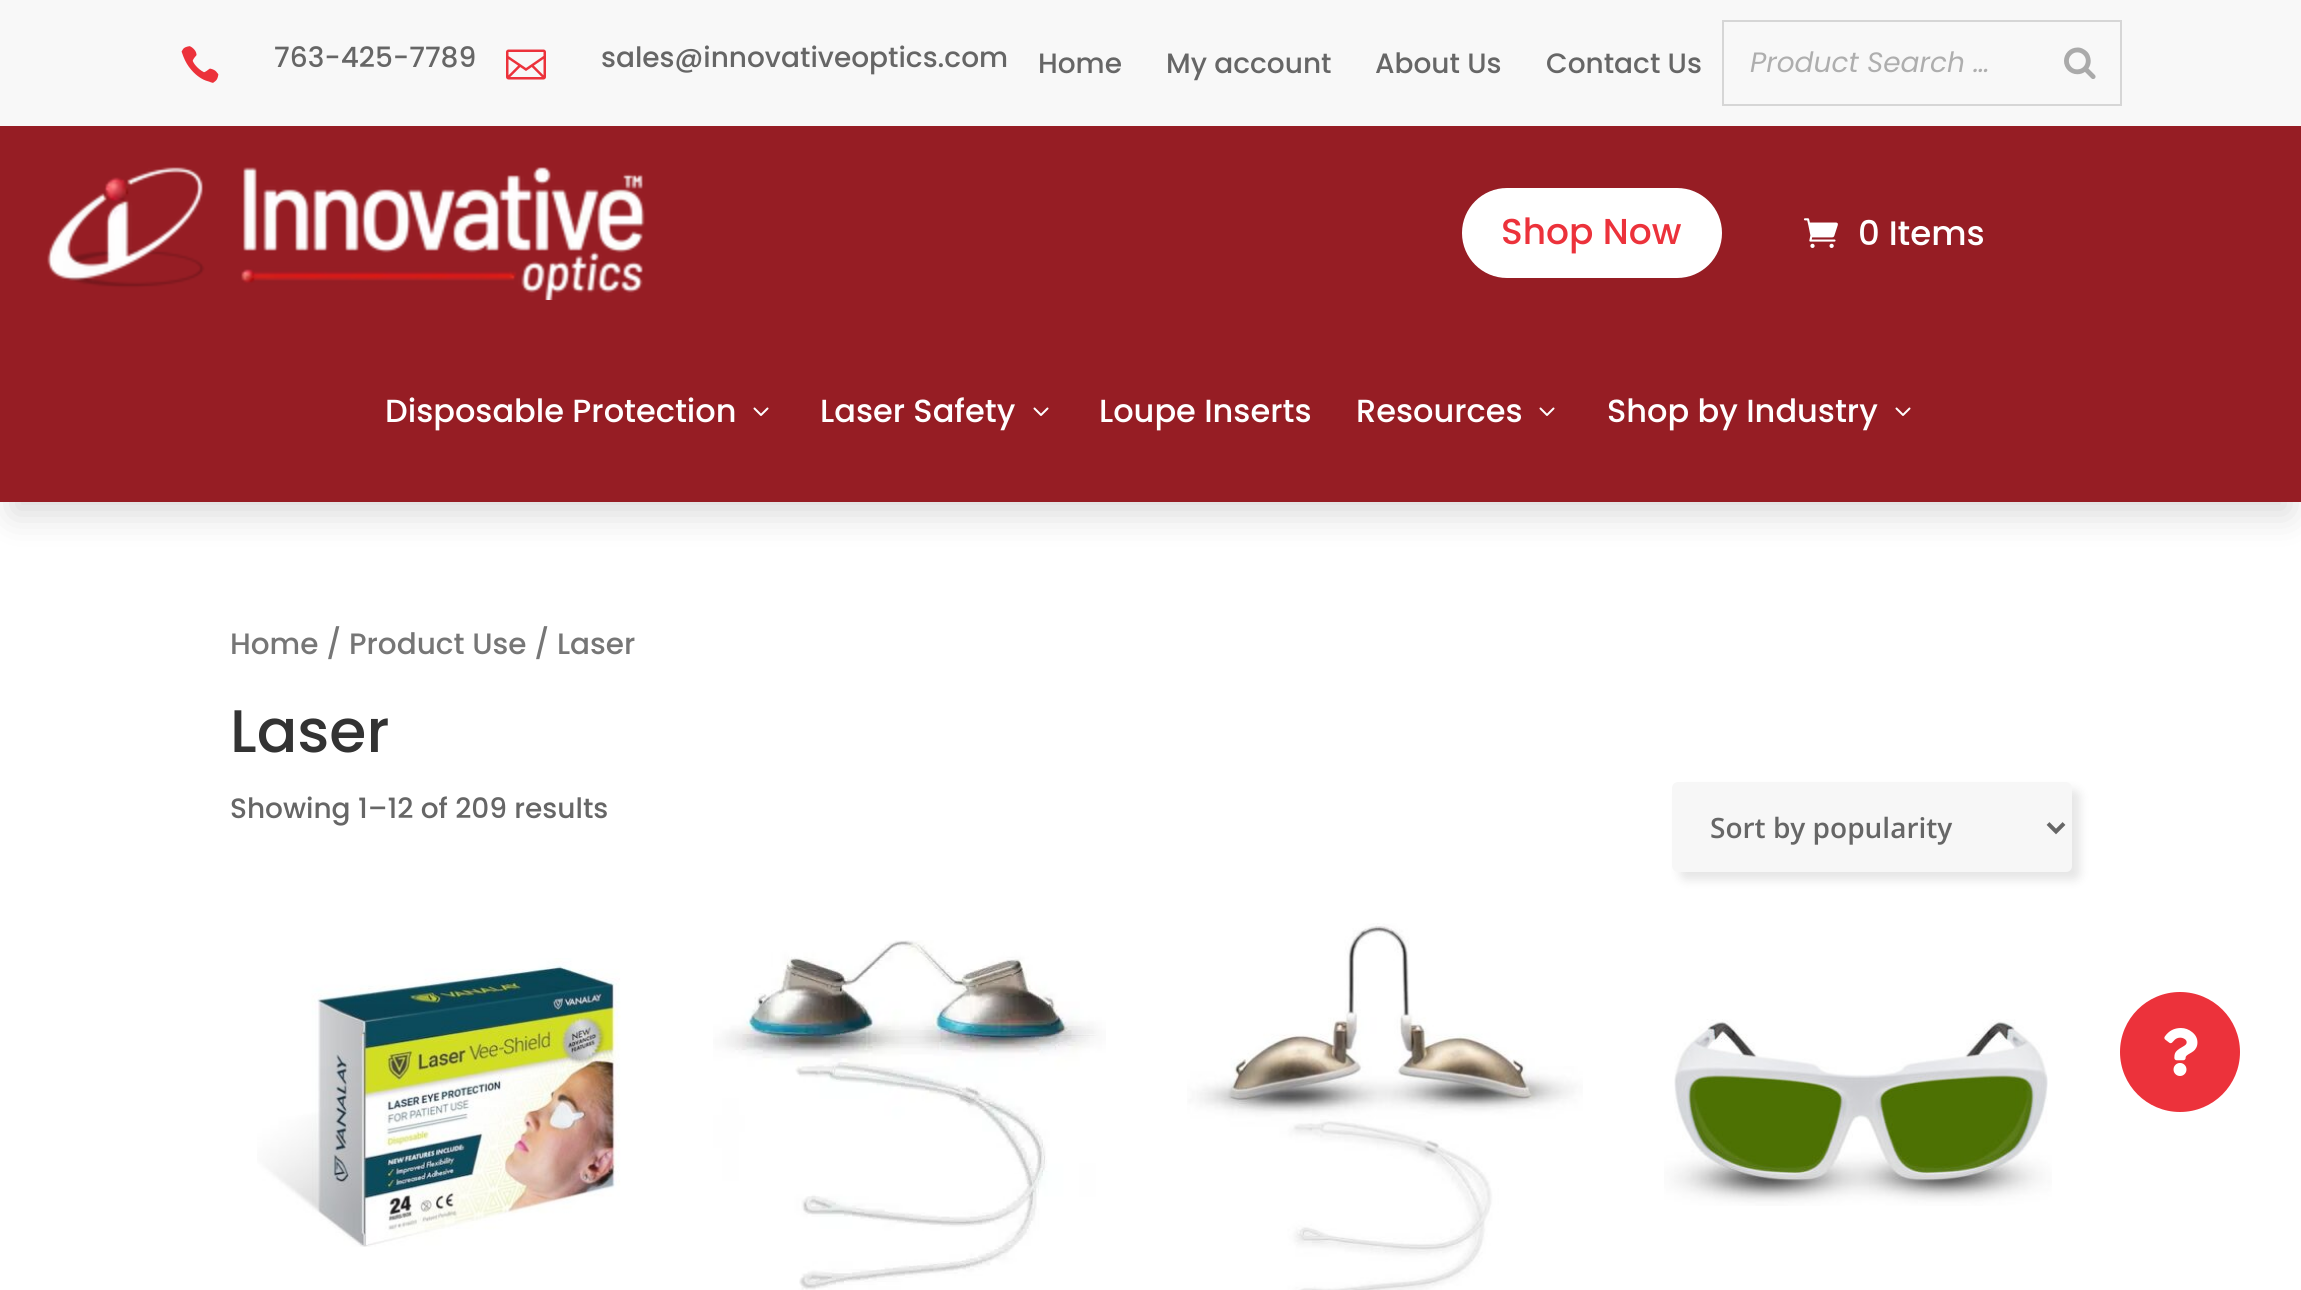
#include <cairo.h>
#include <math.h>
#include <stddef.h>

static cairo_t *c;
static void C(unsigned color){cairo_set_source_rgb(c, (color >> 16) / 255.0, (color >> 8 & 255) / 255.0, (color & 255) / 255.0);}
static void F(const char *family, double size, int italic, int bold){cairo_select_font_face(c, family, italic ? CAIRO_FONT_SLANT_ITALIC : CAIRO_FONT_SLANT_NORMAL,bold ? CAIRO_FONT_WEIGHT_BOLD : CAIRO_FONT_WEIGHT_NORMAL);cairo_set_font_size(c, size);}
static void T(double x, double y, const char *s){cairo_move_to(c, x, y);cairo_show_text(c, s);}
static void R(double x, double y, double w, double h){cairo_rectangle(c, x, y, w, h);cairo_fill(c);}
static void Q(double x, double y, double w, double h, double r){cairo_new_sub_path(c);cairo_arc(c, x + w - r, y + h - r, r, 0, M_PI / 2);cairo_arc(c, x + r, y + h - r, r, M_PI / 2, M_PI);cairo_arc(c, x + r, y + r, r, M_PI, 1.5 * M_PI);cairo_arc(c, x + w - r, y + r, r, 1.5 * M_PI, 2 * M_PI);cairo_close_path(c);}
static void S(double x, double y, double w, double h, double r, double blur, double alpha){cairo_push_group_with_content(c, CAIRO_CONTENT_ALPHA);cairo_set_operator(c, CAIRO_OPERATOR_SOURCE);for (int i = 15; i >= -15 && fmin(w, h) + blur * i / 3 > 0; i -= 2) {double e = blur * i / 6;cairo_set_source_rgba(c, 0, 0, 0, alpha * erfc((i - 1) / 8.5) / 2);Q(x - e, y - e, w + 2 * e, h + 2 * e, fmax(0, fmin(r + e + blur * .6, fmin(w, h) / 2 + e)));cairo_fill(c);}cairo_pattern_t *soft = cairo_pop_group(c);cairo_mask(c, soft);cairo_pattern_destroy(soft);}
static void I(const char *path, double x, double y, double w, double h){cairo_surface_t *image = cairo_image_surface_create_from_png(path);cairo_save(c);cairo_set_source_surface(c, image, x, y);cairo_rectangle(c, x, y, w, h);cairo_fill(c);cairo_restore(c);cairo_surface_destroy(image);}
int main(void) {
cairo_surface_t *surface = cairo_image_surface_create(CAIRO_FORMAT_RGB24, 2301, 1290);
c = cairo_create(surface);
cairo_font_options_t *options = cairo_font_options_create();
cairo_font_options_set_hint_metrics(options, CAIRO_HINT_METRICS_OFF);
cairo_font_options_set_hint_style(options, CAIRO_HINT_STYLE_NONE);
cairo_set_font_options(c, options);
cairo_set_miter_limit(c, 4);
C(0xffffff);
cairo_paint(c);
C(0x000000);
S(12,162,2278,352,0,18,.15);
C(0xf8f8f8);
R(0,0,2301,126);
I("1.png",181,46,38,37);
F("Poppins Medium",28,0,0);
C(0x666666);
T(274,67,"763-425-7789");
I("2.png",506,49,40,31);
T(601,67,"sales@innovativeoptics.com");
T(1038,73,"Home");
T(1166,73,"My account");
T(1375,73,"About Us");
T(1546,73,"Contact Us");
cairo_rectangle(c,1723,21,398,84);
C(0xd6d6d6);
cairo_stroke(c);
F("Poppins",28,1,0);
C(0xaeaeae);
T(1750,72,"Product Search …");
I("3.png",2064,47,32,32);
C(0x961d24);
R(0,126,2301,376);
I("4.png",47,167,598,133);
C(0xffffff);
Q(1464,190,256,86,43);
cairo_fill_preserve(c);
cairo_set_line_width(c,4);
cairo_stroke(c);
F("Poppins Medium",36,0,0);
C(0xec323b);
T(1501,244,"Shop Now");
I("5.png",1803,218,35,30);
F("Poppins Medium",34,0,0);
C(0xffffff);
T(1858,245,"0 Items");
F("Poppins Medium",32,0,0);
T(385,422,"Disposable Protection");
I("6.png",753,407,16,9);
T(820,422,"Laser Safety");
I("6.png",1033,407,16,9);
T(1099,422,"Loupe Inserts");
T(1356,422,"Resources");
I("6.png",1539,407,16,9);
T(1607,422,"Shop by Industry");
I("6.png",1895,407,16,9);
F("Poppins Medium",29.5,0,0);
C(0x767676);
T(230,654,"Home / Product Use / Laser");
F("Poppins Medium",60,0,0);
C(0x333333);
T(230,752,"Laser");
F("Poppins Medium",28,0,0);
C(0x666666);
T(230,818,"Showing 1–12 of 209 results");
C(0x000000);
S(1680,790,400,90,6,5,.1);
C(0xf7f7f7);
Q(1672,782,400,90,6);
cairo_fill(c);
cairo_new_path(c);
cairo_move_to(c,2048,823.5);
cairo_line_to(c,2056,831.5);
cairo_line_to(c,2064,823.5);
C(0x666666);
cairo_stroke(c);
F("Open Sans SemiBold",28,0,0);
T(1710,838,"Sort by popularity");
I("7.png",257,958,364,289);
I("8.png",713,940,393,350);
I("9.png",1187,923,396,367);
I("10.png",1664,1019,388,187);
C(0xec323b);
cairo_arc(c,2180,1052,61,0,2 * M_PI);
cairo_fill_preserve(c);
C(0xffffff);
cairo_set_line_width(c,2);
cairo_stroke(c);
I("11.png",2164,1028,34,48);
cairo_surface_write_to_png(surface, "o.png");
cairo_font_options_destroy(options);
cairo_destroy(c);
cairo_surface_destroy(surface);
return 0;
}
